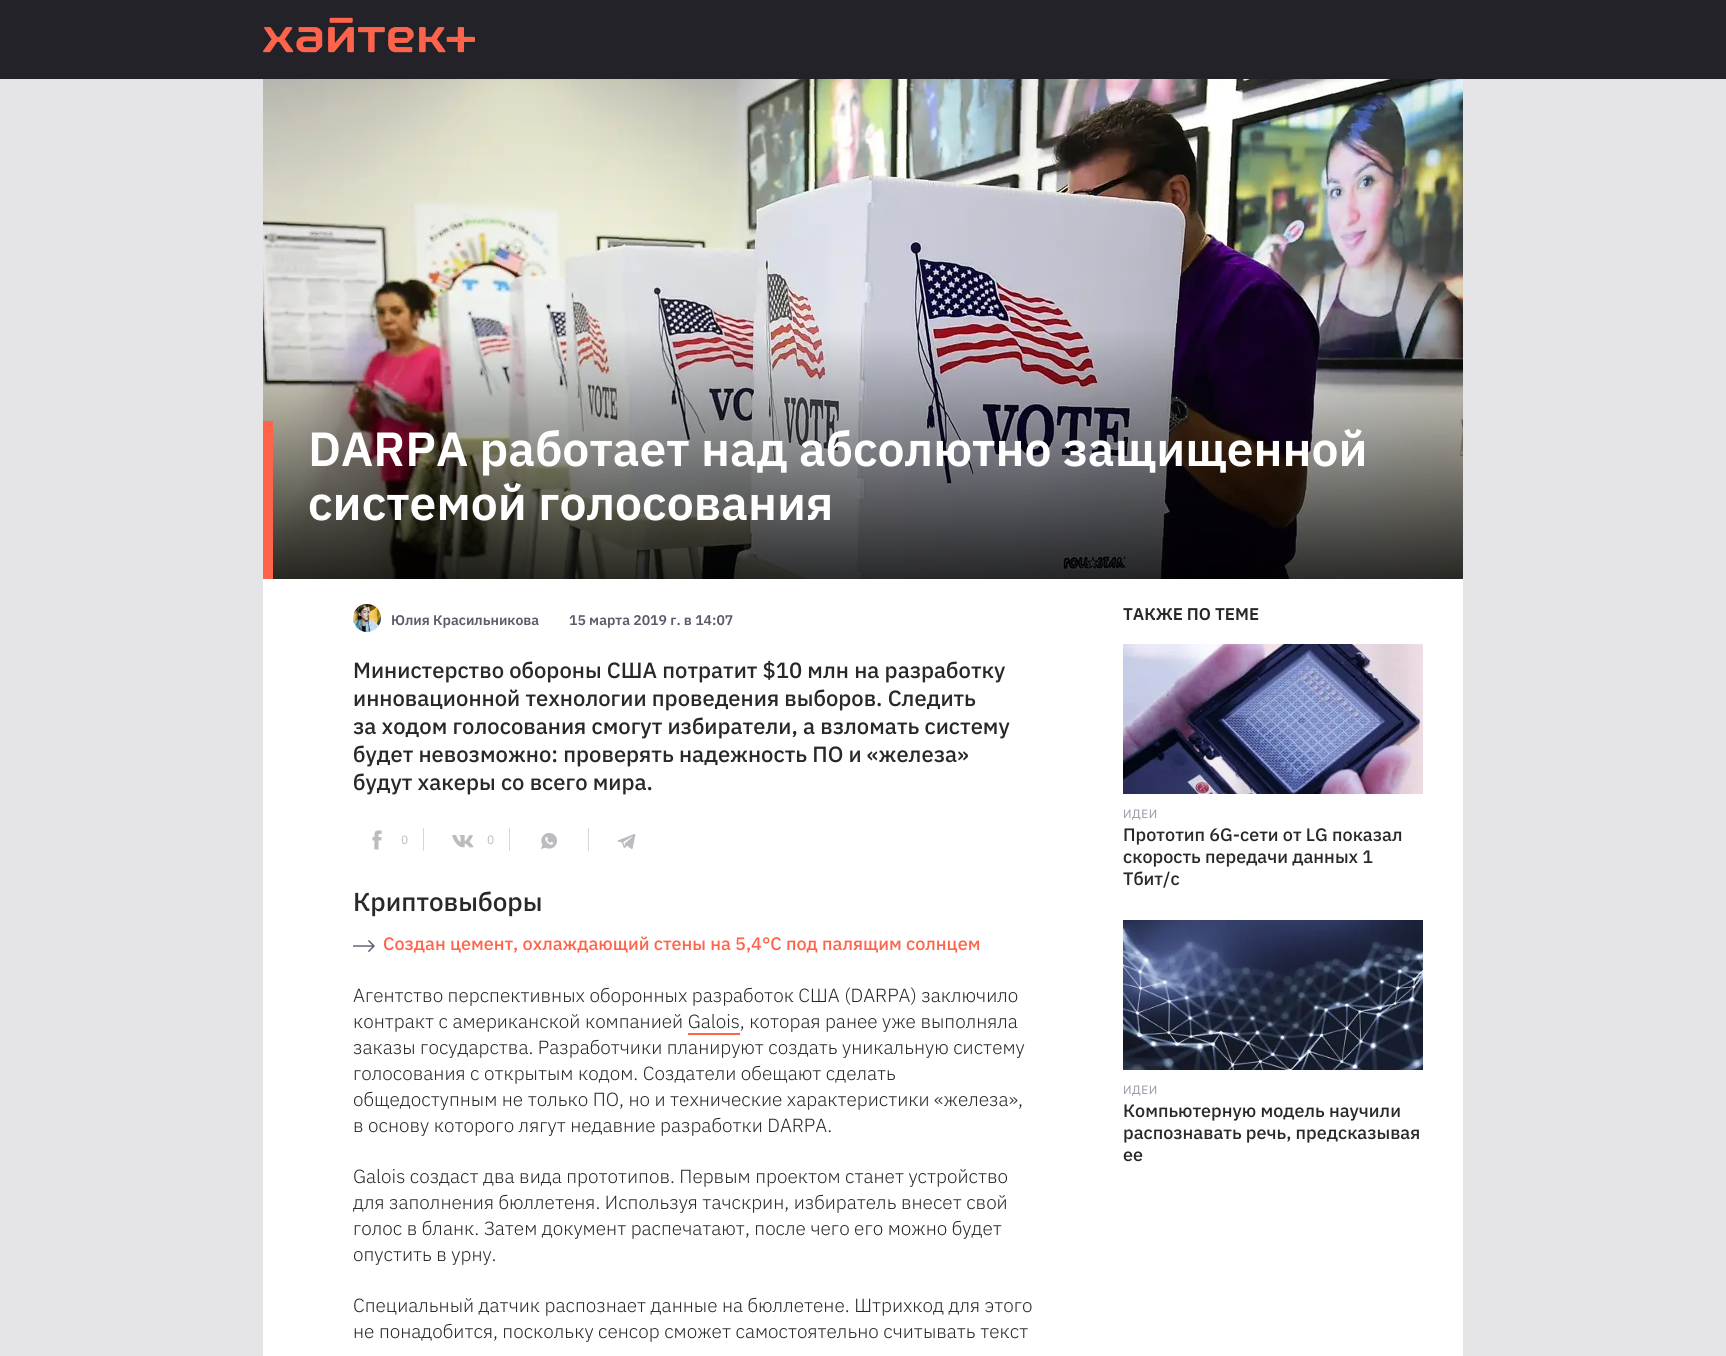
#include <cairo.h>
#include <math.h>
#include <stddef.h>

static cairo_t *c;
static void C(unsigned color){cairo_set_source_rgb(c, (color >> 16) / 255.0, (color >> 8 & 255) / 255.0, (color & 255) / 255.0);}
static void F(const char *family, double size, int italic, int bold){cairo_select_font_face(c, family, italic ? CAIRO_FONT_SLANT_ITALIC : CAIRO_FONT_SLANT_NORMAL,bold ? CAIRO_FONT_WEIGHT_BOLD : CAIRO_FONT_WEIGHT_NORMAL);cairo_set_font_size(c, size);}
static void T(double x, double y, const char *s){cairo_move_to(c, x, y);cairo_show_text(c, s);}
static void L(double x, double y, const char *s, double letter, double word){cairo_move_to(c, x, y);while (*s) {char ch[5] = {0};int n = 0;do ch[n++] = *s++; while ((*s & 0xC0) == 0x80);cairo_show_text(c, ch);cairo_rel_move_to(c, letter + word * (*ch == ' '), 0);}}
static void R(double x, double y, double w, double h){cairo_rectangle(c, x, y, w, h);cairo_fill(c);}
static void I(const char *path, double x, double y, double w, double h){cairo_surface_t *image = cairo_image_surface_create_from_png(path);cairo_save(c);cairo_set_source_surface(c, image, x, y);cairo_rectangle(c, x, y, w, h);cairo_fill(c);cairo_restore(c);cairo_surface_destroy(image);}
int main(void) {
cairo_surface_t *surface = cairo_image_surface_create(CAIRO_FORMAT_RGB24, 1726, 1356);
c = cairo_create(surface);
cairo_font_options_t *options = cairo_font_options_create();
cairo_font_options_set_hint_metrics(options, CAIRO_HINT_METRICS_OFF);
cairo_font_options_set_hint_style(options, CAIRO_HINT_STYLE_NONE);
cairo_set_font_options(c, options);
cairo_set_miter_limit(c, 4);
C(0xe5e5e7);
cairo_paint(c);
C(0x222228);
R(0,0,1726,79);
I("1.png",263,17,212,36);
I("2.png",263,79,1200,500);
C(0xff644b);
R(263,421,10,158);
F("IBM Plex Sans SemiBold",48,0,0);
C(0xffffff);
T(308,466,"DARPA работает над абсолютно защищенной");
T(308,520,"системой голосования");
R(263,579,1200,777);
I("3.png",353,604,28,28);
F("IBM Plex Sans SemiBold",14,0,0);
C(0x5b5b6c);
T(391,625,"Юлия Красильникова");
T(569,625,"15 марта 2019 г. в 14:07");
F("IBM Plex Sans Medium",22,0,0);
C(0x282828);
T(353,678,"Министерство обороны США потратит $10 млн на разработку");
T(353,706,"инновационной технологии проведения выборов. Следить");
T(353,734,"за ходом голосования смогут избиратели, а взломать систему");
T(353,762,"будет невозможно: проверять надежность ПО и «железа»");
T(353,790,"будут хакеры со всего мира.");
I("4.png",372,830,10,20);
F("IBM Plex Sans",12,0,0);
C(0xbbbbc0);
T(401,844,"0");
C(0xd8d8d8);
R(423,828,1,23);
I("5.png",452,835,22,13);
C(0xbbbbc0);
T(487,844,"0");
C(0xd8d8d8);
R(509,828,1,23);
I("6.png",541,833,16,16);
R(588,828,1,23);
I("7.png",617,834,19,15);
F("IBM Plex Sans Medium",26,0,0);
C(0x282828);
T(353,911,"Криптовыборы");
I("8.png",353,940,22,12);
F("IBM Plex Sans Medium",18,0,0);
C(0xff644b);
T(383,950,"Создан цемент, охлаждающий стены на 5,4°C под палящим солнцем");
F("IBM Plex Sans Light",19,0,0);
C(0x282828);
T(353,1002,"Агентство перспективных оборонных разработок США (DARPA) заключило");
T(353,1028,"контракт с американской компанией Galois, которая ранее уже выполняла");
C(0xff644b);
R(688,1033,52,2);
C(0x282828);
T(353,1054,"заказы государства. Разработчики планируют создать уникальную систему");
T(353,1080,"голосования с открытым кодом. Создатели обещают сделать");
T(353,1106,"общедоступным не только ПО, но и технические характеристики «железа»,");
T(353,1132,"в основу которого лягут недавние разработки DARPA.");
T(353,1183,"Galois создаст два вида прототипов. Первым проектом станет устройство");
T(353,1209,"для заполнения бюллетеня. Используя тачскрин, избиратель внесет свой");
T(353,1235,"голос в бланк. Затем документ распечатают, после чего его можно будет");
T(353,1261,"опустить в урну.");
T(353,1312,"Специальный датчик распознает данные на бюллетене. Штрихкод для этого");
T(353,1338,"не понадобится, поскольку сенсор сможет самостоятельно считывать текст");
F("IBM Plex Sans SemiBold",17,0,0);
T(1123,620,"ТАКЖЕ ПО ТЕМЕ");
I("9.png",1123,644,300,150);
F("IBM Plex Sans",12,0,0);
C(0x9494a0);
L(1123,818,"ИДЕИ",.5,0);
F("IBM Plex Sans Medium",18,0,0);
C(0x282828);
T(1123,841,"Прототип 6G-сети от LG показал");
T(1123,863,"скорость передачи данных 1");
T(1123,885,"Тбит/с");
I("10.png",1123,920,300,150);
F("IBM Plex Sans",12,0,0);
C(0x9494a0);
L(1123,1094,"ИДЕИ",.5,0);
F("IBM Plex Sans Medium",18,0,0);
C(0x282828);
T(1123,1117,"Компьютерную модель научили");
T(1123,1139,"распознавать речь, предсказывая");
T(1123,1161,"ее");
cairo_surface_write_to_png(surface, "o.png");
cairo_font_options_destroy(options);
cairo_destroy(c);
cairo_surface_destroy(surface);
return 0;
}
